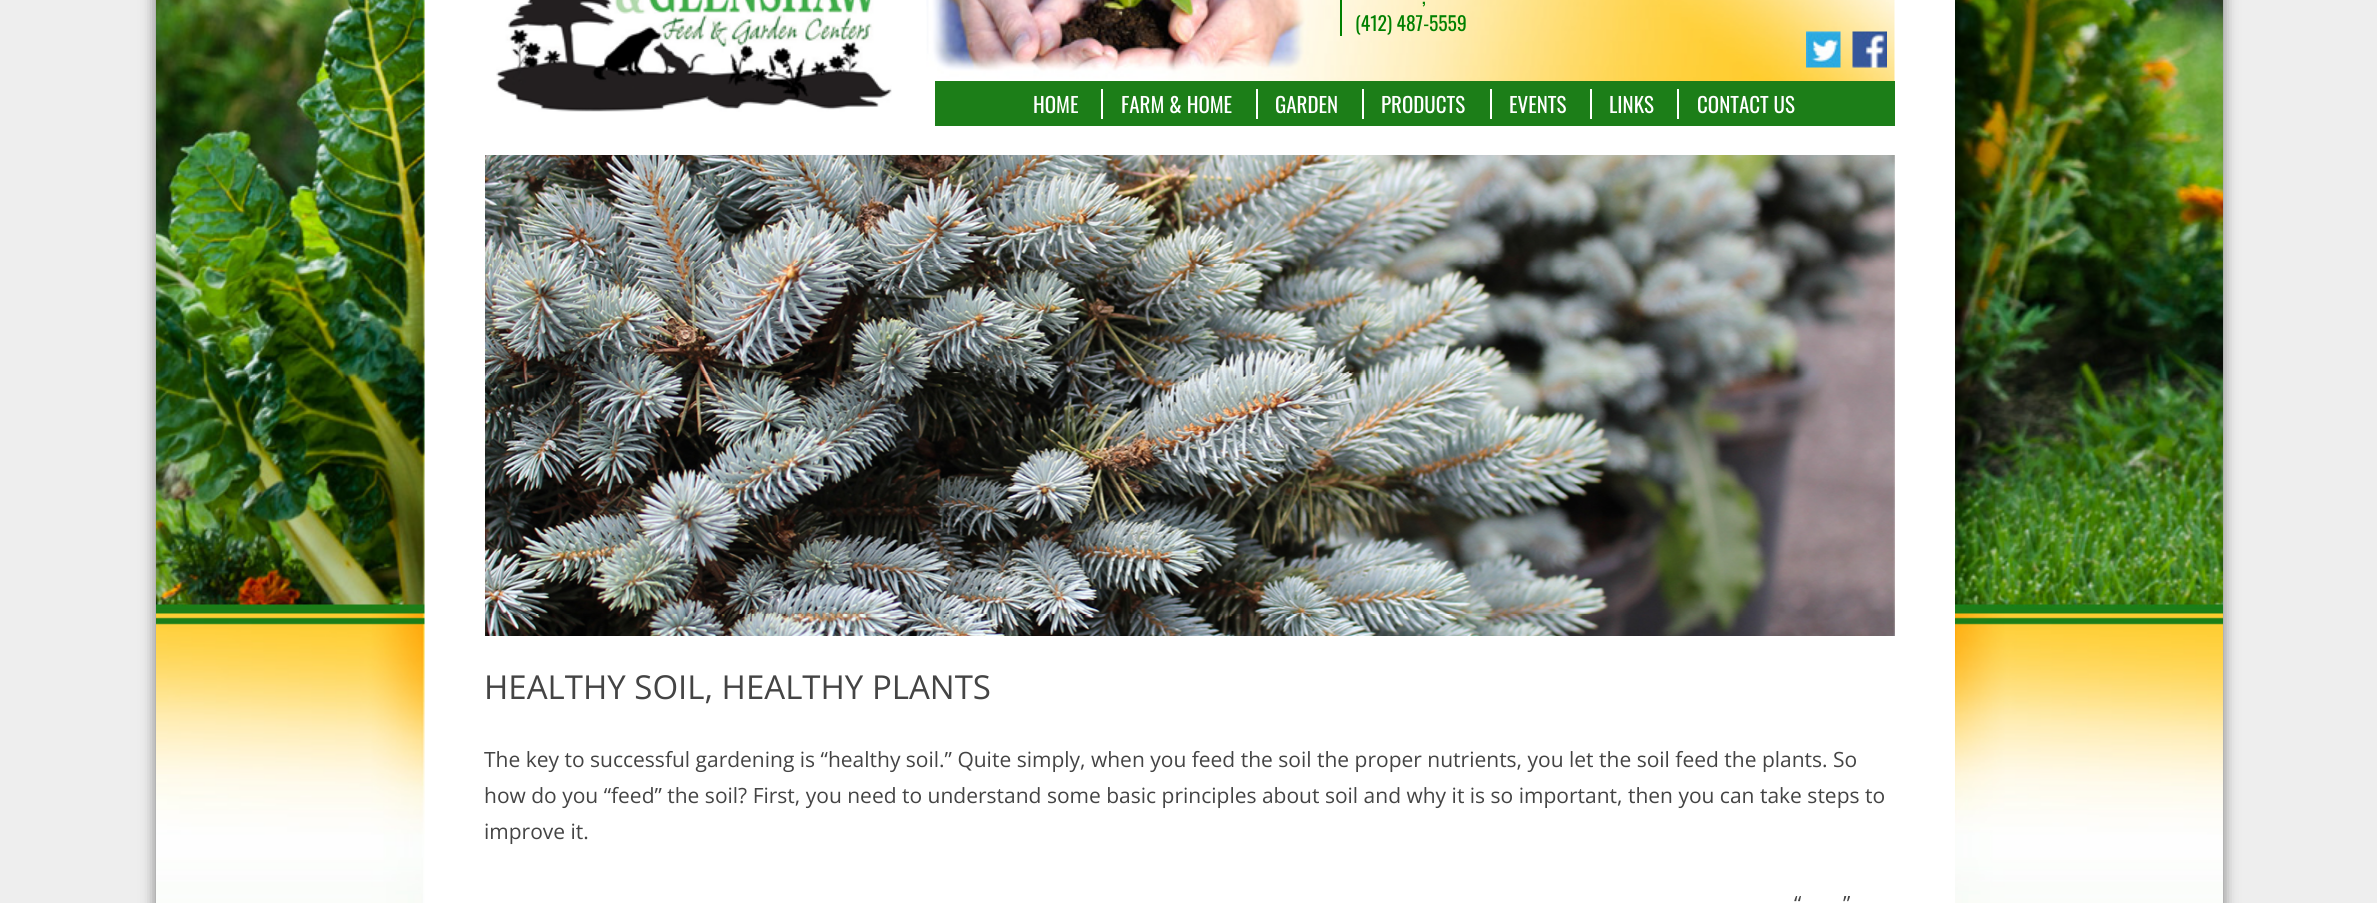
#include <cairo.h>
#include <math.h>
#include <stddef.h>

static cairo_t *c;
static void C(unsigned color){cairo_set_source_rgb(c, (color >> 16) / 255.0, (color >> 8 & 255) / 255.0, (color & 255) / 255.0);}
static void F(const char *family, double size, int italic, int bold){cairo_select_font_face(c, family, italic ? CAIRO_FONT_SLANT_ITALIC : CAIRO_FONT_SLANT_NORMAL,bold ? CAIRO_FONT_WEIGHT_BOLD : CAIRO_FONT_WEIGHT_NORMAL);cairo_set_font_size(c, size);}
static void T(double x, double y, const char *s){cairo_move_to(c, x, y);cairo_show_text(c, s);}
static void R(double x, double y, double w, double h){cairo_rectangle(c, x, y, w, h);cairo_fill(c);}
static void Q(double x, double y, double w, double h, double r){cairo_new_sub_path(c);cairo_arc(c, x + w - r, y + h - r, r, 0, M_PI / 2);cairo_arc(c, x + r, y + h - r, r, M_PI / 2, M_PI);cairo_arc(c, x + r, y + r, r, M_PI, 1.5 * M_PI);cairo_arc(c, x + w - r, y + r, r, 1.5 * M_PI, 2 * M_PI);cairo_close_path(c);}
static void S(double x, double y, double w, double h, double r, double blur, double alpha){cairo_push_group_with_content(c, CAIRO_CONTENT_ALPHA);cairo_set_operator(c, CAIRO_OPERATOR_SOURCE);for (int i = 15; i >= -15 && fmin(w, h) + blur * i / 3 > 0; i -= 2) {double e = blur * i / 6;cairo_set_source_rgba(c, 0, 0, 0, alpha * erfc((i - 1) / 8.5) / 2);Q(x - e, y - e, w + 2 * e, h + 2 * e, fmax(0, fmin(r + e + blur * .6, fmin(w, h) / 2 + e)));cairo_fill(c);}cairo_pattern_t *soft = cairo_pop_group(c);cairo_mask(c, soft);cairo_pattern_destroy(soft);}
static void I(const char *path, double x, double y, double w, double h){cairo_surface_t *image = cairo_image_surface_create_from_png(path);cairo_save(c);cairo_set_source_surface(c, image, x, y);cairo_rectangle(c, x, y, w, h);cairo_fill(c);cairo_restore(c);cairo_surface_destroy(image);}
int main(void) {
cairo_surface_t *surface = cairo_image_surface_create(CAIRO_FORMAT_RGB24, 2377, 903);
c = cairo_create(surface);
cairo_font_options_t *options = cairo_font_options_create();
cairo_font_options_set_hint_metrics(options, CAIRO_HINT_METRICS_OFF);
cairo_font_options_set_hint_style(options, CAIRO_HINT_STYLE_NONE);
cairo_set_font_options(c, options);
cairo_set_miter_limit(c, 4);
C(0xeeeeee);
cairo_paint(c);
C(0x777777);
S(156,-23,2067,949,0,7.5,1);
I("1.png",156,0,2067,903);
C(0xffffff);
R(425,0,1530,903);
I("2.png",496,0,396,112);
I("3.png",926,0,969,84);
C(0x008000);
R(1340,0,2,36);
F("Oswald",19.5,0,0);
T(1422,4,",");
T(1355,31,"(412) 487-5559");
I("4.png",1806,31,35,37);
I("5.png",1852,31,35,37);
C(0x1c7e18);
R(935,81,960,45);
F("Oswald",21,0,0);
C(0xffffff);
T(1033,113,"HOME");
R(1101,89,2,30);
T(1121,113,"FARM & HOME");
R(1256,89,2,30);
T(1275,113,"GARDEN");
R(1362,89,2,30);
T(1381,113,"PRODUCTS");
R(1490,89,2,30);
T(1509,113,"EVENTS");
R(1590,89,2,30);
T(1609,113,"LINKS");
R(1677,89,2,30);
T(1697,113,"CONTACT US");
I("6.png",485,155,1410,481);
F("Open Sans",33,0,0);
C(0x444444);
T(484,699,"HEALTHY SOIL, HEALTHY PLANTS");
F("Open Sans",21,0,0);
T(484,767,"The key to successful gardening is “healthy soil.” Quite simply, when you feed the soil the proper nutrients, you let the soil feed the plants. So");
T(484,803,"how do you “feed” the soil? First, you need to understand some basic principles about soil and why it is so important, then you can take steps to");
T(484,839,"improve it.");
T(1794,911,"“");
T(1843,911,"”");
cairo_surface_write_to_png(surface, "o.png");
cairo_font_options_destroy(options);
cairo_destroy(c);
cairo_surface_destroy(surface);
return 0;
}
